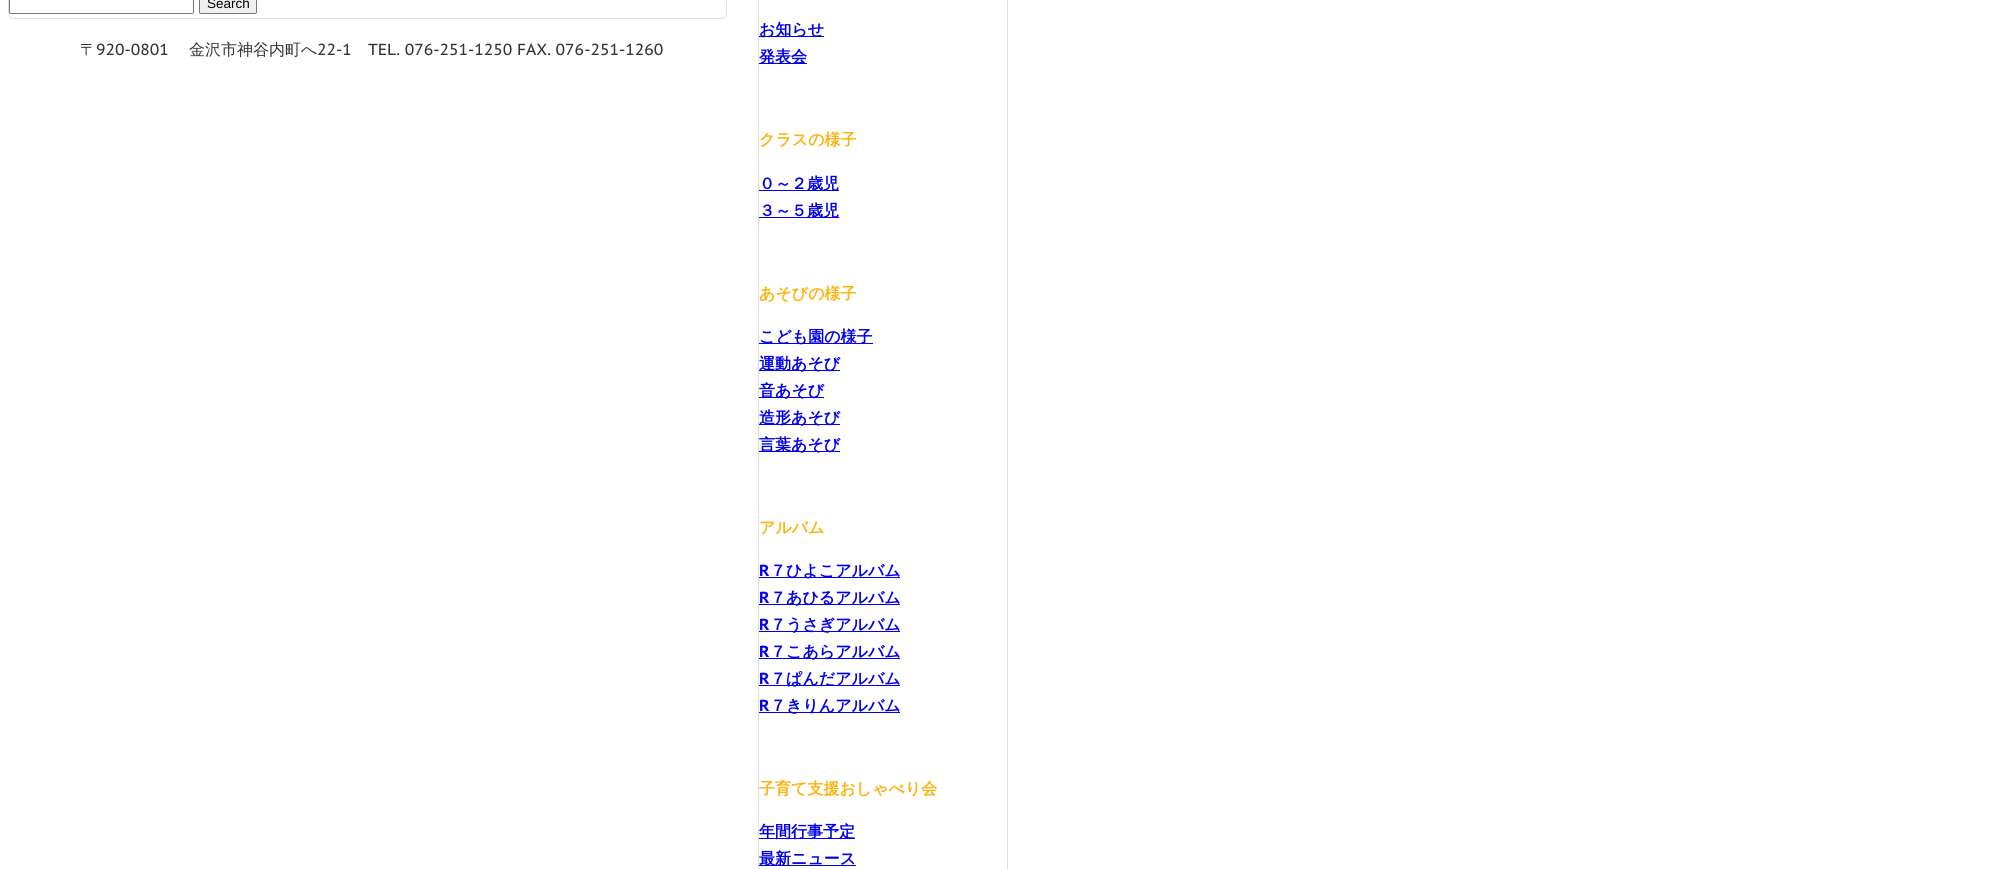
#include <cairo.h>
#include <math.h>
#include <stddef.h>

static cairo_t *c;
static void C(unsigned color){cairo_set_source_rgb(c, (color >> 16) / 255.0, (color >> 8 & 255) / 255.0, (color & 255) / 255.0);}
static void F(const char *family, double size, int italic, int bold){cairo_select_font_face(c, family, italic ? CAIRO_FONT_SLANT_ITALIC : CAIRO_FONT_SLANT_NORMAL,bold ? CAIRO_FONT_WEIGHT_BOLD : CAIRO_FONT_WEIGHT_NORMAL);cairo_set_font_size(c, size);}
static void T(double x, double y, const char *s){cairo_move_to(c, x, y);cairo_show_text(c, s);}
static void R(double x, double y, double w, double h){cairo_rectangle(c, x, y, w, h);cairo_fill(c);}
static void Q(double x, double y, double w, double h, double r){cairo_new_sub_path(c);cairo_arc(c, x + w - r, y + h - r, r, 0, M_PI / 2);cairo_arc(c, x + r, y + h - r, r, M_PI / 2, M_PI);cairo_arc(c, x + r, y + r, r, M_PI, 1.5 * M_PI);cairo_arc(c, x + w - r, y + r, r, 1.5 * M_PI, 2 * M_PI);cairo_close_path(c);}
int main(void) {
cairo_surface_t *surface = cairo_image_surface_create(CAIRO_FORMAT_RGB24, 2012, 869);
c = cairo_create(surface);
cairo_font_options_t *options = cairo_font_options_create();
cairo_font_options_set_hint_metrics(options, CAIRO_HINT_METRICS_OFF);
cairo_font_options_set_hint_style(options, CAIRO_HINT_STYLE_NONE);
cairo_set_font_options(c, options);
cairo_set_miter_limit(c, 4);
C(0xffffff);
cairo_paint(c);
Q(8.5,-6.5,718,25,5.5);
C(0xe0dede);
cairo_set_line_width(c,1);
cairo_stroke(c);
Q(9.5,-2.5,184,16,1.5);
C(0x767676);
cairo_stroke(c);
C(0xefefef);
Q(199.5,-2.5,57,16,1.5);
cairo_fill_preserve(c);
C(0x767676);
cairo_stroke(c);
F("Liberation Sans",13.5,0,0);
C(0x000000);
T(207,8,"Search");
cairo_rectangle(c,758.5,-.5,249,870);
C(0xe0dede);
cairo_stroke(c);
C(0x0000ee);
R(759,36,65,1);
F("WenQuanYi Zen Hei",16,0,1);
T(759,35,"お知らせ");
R(759,63,48,1);
T(759,62,"発表会");
C(0xfeb20a);
T(759,145,"クラスの様子");
C(0x0000ee);
R(759,190,80,1);
T(759,189,"０～２歳児");
R(759,217,80,1);
T(759,216,"３～５歳児");
C(0xfeb20a);
T(759,299,"あそびの様子");
C(0x0000ee);
R(759,343,114,1);
T(759,342,"こども園の様子");
R(759,370,81,1);
T(759,369,"運動あそび");
R(759,397,65,1);
T(759,396,"音あそび");
R(759,424,81,1);
T(759,423,"造形あそび");
R(759,451,81,1);
T(759,450,"言葉あそび");
C(0xfeb20a);
T(759,533,"アルバム");
F("PT Sans Caption",16,0,1);
C(0x0000ee);
T(759,576,"R");
R(759,577,141,1);
F("WenQuanYi Zen Hei",16,0,1);
T(770,576,"７ひよこアルバム");
F("PT Sans Caption",16,0,1);
T(759,603,"R");
R(759,604,141,1);
F("WenQuanYi Zen Hei",16,0,1);
T(770,603,"７あひるアルバム");
F("PT Sans Caption",16,0,1);
T(759,630,"R");
R(759,631,141,1);
F("WenQuanYi Zen Hei",16,0,1);
T(770,630,"７うさぎアルバム");
F("PT Sans Caption",16,0,1);
T(759,657,"R");
R(759,658,141,1);
F("WenQuanYi Zen Hei",16,0,1);
T(770,657,"７こあらアルバム");
F("PT Sans Caption",16,0,1);
T(759,684,"R");
R(759,685,141,1);
F("WenQuanYi Zen Hei",16,0,1);
T(770,684,"７ぱんだアルバム");
F("PT Sans Caption",16,0,1);
T(759,711,"R");
R(759,712,141,1);
F("WenQuanYi Zen Hei",16,0,1);
T(770,711,"７きりんアルバム");
C(0xfeb20a);
T(759,794,"子育て支援おしゃべり会");
C(0x0000ee);
R(759,838,96,1);
T(759,837,"年間行事予定");
R(759,865,97,1);
T(759,864,"最新ニュース");
F("WenQuanYi Zen Hei Medium",16,0,0);
C(0x333333);
T(80,55,"〒");
F("PT Sans Caption",16,0,0);
T(96,55,"920-0801");
F("WenQuanYi Zen Hei Medium",16,0,0);
T(189,55,"金沢市神谷内町へ");
F("PT Sans Caption",16,0,0);
T(317,55,"22-1");
T(368,55,"TEL. 076-251-1250 FAX. 076-251-1260");
cairo_surface_write_to_png(surface, "o.png");
cairo_font_options_destroy(options);
cairo_destroy(c);
cairo_surface_destroy(surface);
return 0;
}
